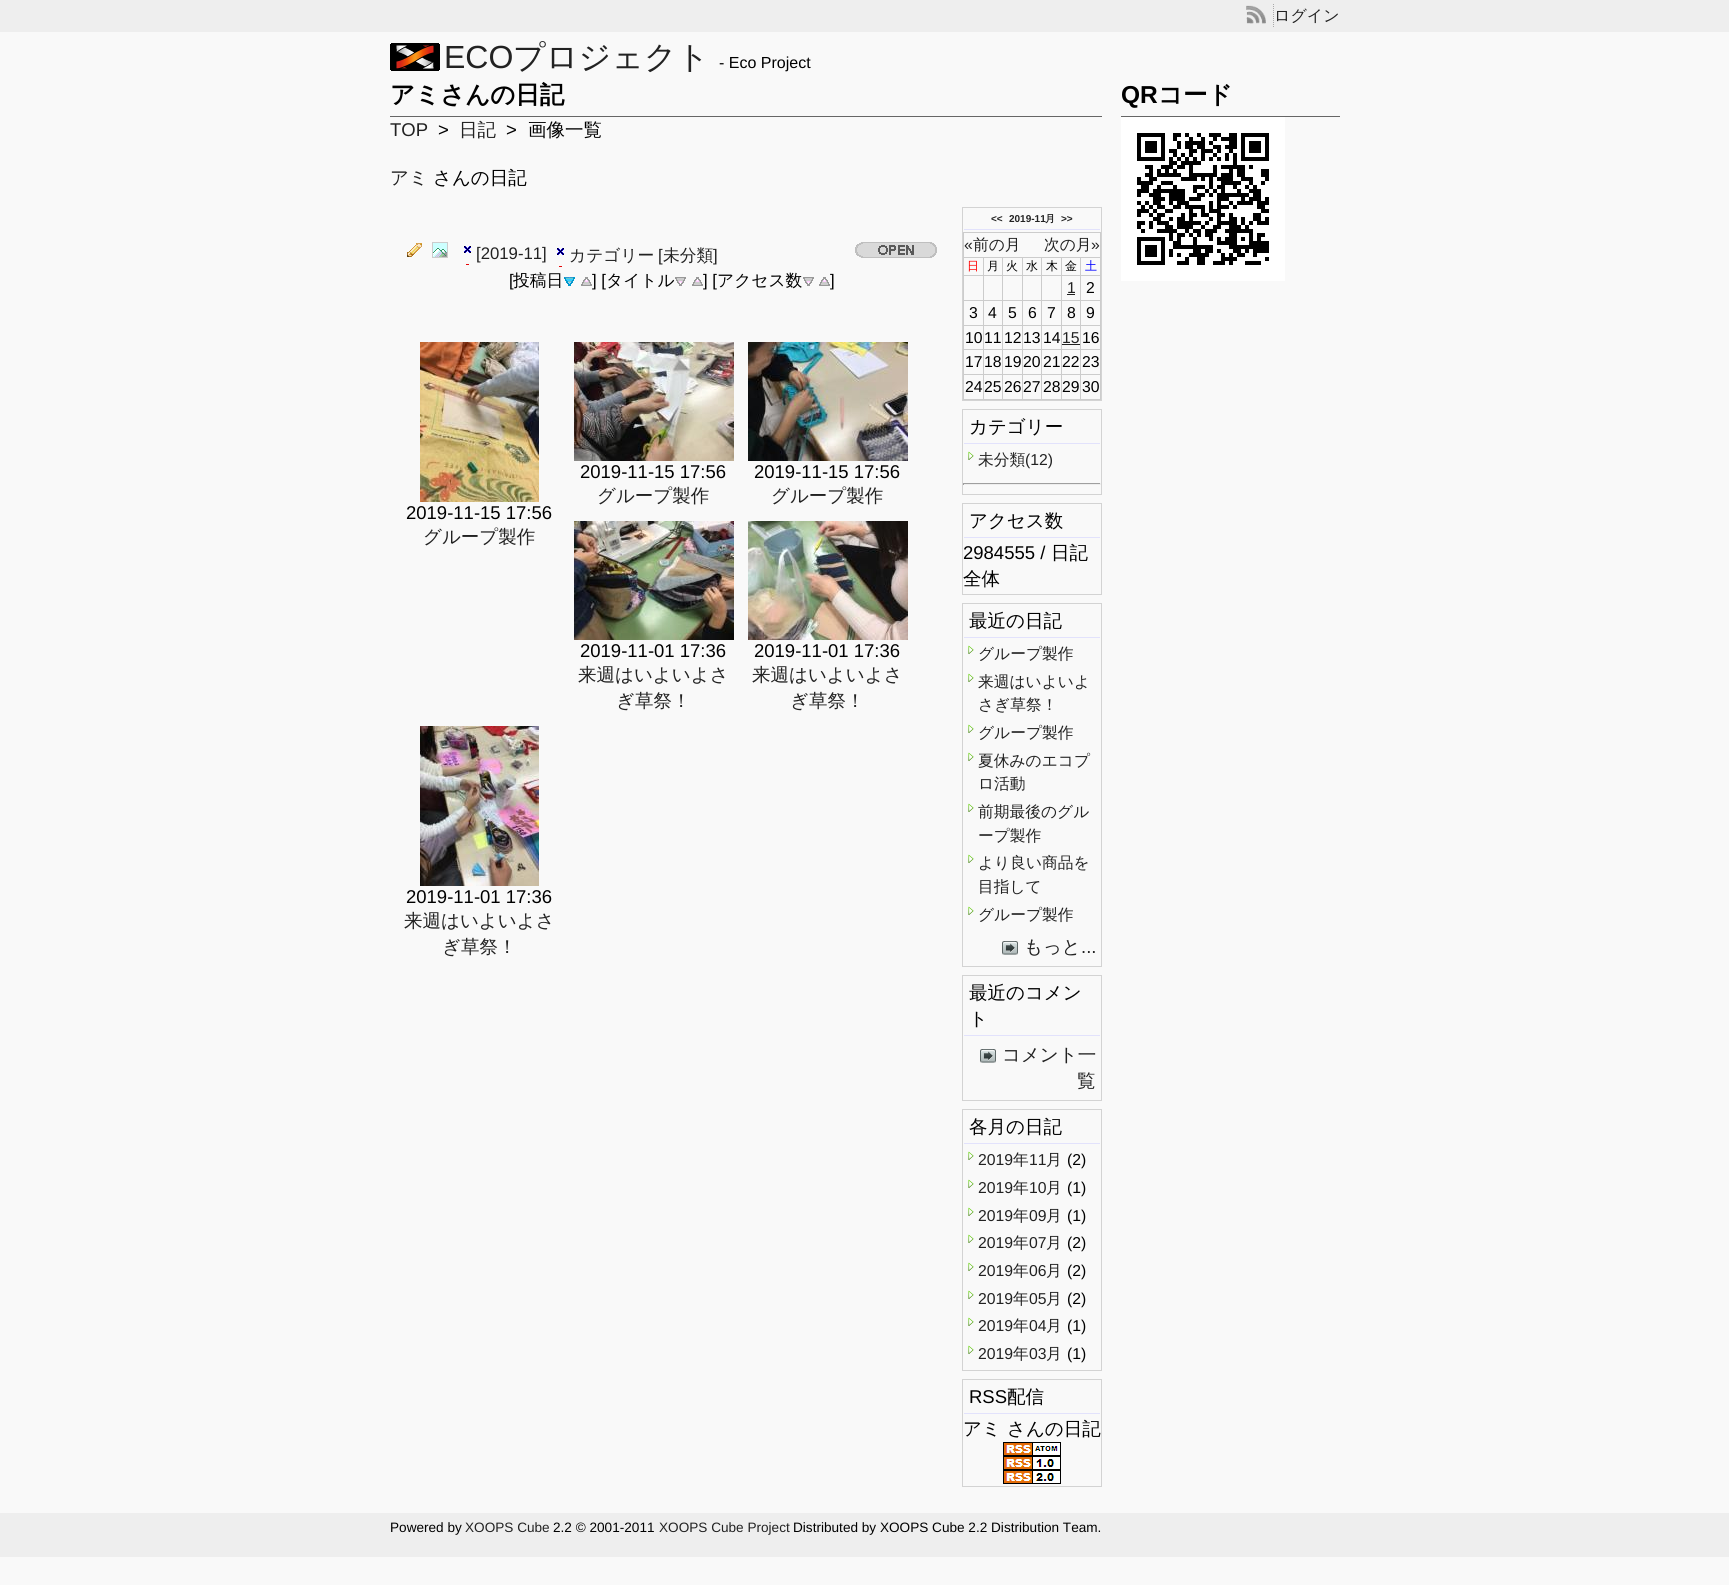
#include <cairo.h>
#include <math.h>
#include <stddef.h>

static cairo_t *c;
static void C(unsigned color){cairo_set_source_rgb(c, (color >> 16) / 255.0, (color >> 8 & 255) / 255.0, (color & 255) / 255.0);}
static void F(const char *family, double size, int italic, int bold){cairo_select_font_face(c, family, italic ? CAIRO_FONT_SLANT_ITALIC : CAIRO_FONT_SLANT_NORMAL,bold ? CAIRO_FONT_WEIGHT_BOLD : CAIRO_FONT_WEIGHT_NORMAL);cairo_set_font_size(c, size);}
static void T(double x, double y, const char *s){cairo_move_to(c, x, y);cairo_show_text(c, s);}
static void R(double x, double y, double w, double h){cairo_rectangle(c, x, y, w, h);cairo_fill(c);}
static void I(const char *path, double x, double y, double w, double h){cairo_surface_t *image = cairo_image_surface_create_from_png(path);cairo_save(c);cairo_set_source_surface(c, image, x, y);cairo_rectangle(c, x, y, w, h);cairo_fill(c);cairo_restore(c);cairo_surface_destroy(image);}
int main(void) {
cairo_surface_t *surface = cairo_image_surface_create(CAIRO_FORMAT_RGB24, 1729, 1585);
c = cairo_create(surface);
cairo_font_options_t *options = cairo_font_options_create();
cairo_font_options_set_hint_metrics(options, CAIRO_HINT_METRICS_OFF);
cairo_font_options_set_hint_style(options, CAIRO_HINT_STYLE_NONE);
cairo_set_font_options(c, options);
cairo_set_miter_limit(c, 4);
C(0xf9f9f9);
cairo_paint(c);
C(0xeeeeee);
R(0,0,1729,32);
I("1.png",1246,5,20,19);
cairo_new_path(c);
cairo_move_to(c,1273.5,4);
cairo_line_to(c,1273.5,27);
C(0xaaaaaa);
cairo_set_line_width(c,1);
cairo_set_dash(c,(double[]){1,1},2,0);
cairo_stroke(c);
F("WenQuanYi Zen Hei Medium",16,0,0);
C(0x222222);
T(1274,21,"ログイン");
I("2.png",390,43,50,28);
F("Liberation Sans",32,0,0);
T(444,68,"ECO");
F("WenQuanYi Zen Hei Medium",32,0,0);
T(513,68,"プロジェクト");
F("Liberation Sans",16,0,0);
C(0x000000);
T(719,68,"- Eco Project");
C(0x666666);
R(390,116,712,1);
F("WenQuanYi Zen Hei",24.5,0,1);
C(0x000000);
T(390,103,"アミさんの日記");
F("Liberation Sans",18.5,0,0);
C(0x222222);
T(390,136,"TOP");
C(0x000000);
T(438,136,">");
F("WenQuanYi Zen Hei Medium",18.5,0,0);
C(0x222222);
T(459,136,"日記");
F("Liberation Sans",18.5,0,0);
C(0x000000);
T(506,136,">");
F("WenQuanYi Zen Hei Medium",18.5,0,0);
T(528,136,"画像一覧");
C(0x222222);
T(390,184,"アミ");
C(0x000000);
T(433,184,"さんの日記");
I("3.png",407,243,15,14);
I("4.png",432,242,16,16);
I("5.png",464,246,7,19);
F("Liberation Sans",16.75,0,0);
C(0x222222);
T(476,259,"[2019-11]");
I("5.png",557,248,7,19);
F("WenQuanYi Zen Hei Medium",16.75,0,0);
T(569,261,"カテゴリー");
F("Liberation Sans",16.75,0,0);
T(658,261,"[");
F("WenQuanYi Zen Hei Medium",16.75,0,0);
T(663,261,"未分類");
F("Liberation Sans",16.75,0,0);
T(713,261,"]");
I("6.png",855,242,82,16);
C(0x000000);
T(509,286,"[");
F("WenQuanYi Zen Hei Medium",16.75,0,0);
T(513,286,"投稿日");
I("7.png",564,277,11,9);
I("8.png",581,277,11,9);
F("Liberation Sans",16.75,0,0);
T(592,286,"] [");
F("WenQuanYi Zen Hei Medium",16.75,0,0);
T(606,286,"タイトル");
I("9.png",675,277,11,9);
F("Liberation Sans",16.75,0,0);
T(703,286,"] [");
I("8.png",692,277,11,9);
F("WenQuanYi Zen Hei Medium",16.75,0,0);
T(717,286,"アクセス数");
I("9.png",803,277,11,9);
I("8.png",819,277,11,9);
F("Liberation Sans",16.75,0,0);
T(830,286,"]");
I("10.png",574,342,160,119);
F("Liberation Sans",18.5,0,0);
T(580,478,"2019-11-15 17:56");
F("WenQuanYi Zen Hei Medium",18.5,0,0);
C(0x222222);
T(597,502,"グループ製作");
I("11.png",748,342,160,119);
F("Liberation Sans",18.5,0,0);
C(0x000000);
T(754,478,"2019-11-15 17:56");
F("WenQuanYi Zen Hei Medium",18.5,0,0);
C(0x222222);
T(771,502,"グループ製作");
I("12.png",420,342,119,160);
F("Liberation Sans",18.5,0,0);
C(0x000000);
T(406,519,"2019-11-15 17:56");
F("WenQuanYi Zen Hei Medium",18.5,0,0);
C(0x222222);
T(423,543,"グループ製作");
I("13.png",574,521,160,119);
F("Liberation Sans",18.5,0,0);
C(0x000000);
T(580,657,"2019-11-01 17:36");
F("WenQuanYi Zen Hei Medium",18.5,0,0);
C(0x222222);
T(578,681,"来週はいよいよさ");
T(616,707,"ぎ草祭！");
I("14.png",748,521,160,119);
F("Liberation Sans",18.5,0,0);
C(0x000000);
T(754,657,"2019-11-01 17:36");
F("WenQuanYi Zen Hei Medium",18.5,0,0);
C(0x222222);
T(752,681,"来週はいよいよさ");
T(790,707,"ぎ草祭！");
I("15.png",420,726,119,160);
F("Liberation Sans",18.5,0,0);
C(0x000000);
T(406,903,"2019-11-01 17:36");
F("WenQuanYi Zen Hei Medium",18.5,0,0);
C(0x222222);
T(404,927,"来週はいよいよさ");
T(442,953,"ぎ草祭！");
cairo_rectangle(c,962.5,207.5,139,193);
C(0xd3d3d3);
cairo_set_dash(c,NULL,0,0);
cairo_stroke(c);
C(0xe2e2fc);
R(964,229,136,1);
F("Liberation Sans",10,0,1);
C(0x222222);
T(991,222,"<<");
T(1009,222,"2019-11");
F("WenQuanYi Zen Hei",10,0,1);
T(1045,222,"月");
F("Liberation Sans",10,0,1);
T(1061,222,">>");
C(0xcccccc);
R(963,232,138,1);
R(1080,257,21,1);
R(1080,275,21,1);
R(1080,300,21,1);
R(1080,325,21,1);
R(1080,349,21,1);
R(1080,374,21,1);
R(1100,374,1,26);
R(1100,349,1,26);
R(1100,325,1,25);
R(1100,300,1,26);
R(1100,275,1,26);
R(1100,257,1,19);
R(1100,232,1,26);
R(1080,399,21,1);
R(1080,374,1,26);
R(1061,374,20,1);
R(1080,349,1,26);
R(1061,349,20,1);
R(1080,325,1,25);
R(1061,325,20,1);
R(1080,300,1,26);
R(1061,300,20,1);
R(1080,275,1,26);
R(1061,275,20,1);
R(1080,257,1,19);
R(1061,257,20,1);
R(1061,399,20,1);
R(1061,374,1,26);
R(1041,374,21,1);
R(1061,349,1,26);
R(1041,349,21,1);
R(1061,325,1,25);
R(1041,325,21,1);
R(1061,300,1,26);
R(1041,300,21,1);
R(1061,275,1,26);
R(1041,275,21,1);
R(1061,257,1,19);
R(1041,257,21,1);
R(1041,399,21,1);
R(1041,374,1,26);
R(1022,374,20,1);
R(1041,349,1,26);
R(1022,349,20,1);
R(1041,325,1,25);
R(1022,325,20,1);
R(1041,300,1,26);
R(1022,300,20,1);
R(1041,275,1,26);
R(1022,275,20,1);
R(1041,257,1,19);
R(1022,257,20,1);
R(1022,399,20,1);
R(1022,374,1,26);
R(1002,374,21,1);
R(1022,349,1,26);
R(1002,349,21,1);
R(1022,325,1,25);
R(1002,325,21,1);
R(1022,300,1,26);
R(1002,300,21,1);
R(1022,275,1,26);
R(1002,275,21,1);
R(1022,257,1,19);
R(1002,257,21,1);
R(1002,399,21,1);
R(1002,374,1,26);
R(983,374,20,1);
R(1002,349,1,26);
R(983,349,20,1);
R(1002,325,1,25);
R(983,325,20,1);
R(1002,300,1,26);
R(983,300,20,1);
R(1002,275,1,26);
R(983,275,20,1);
R(1002,257,1,19);
R(983,257,20,1);
R(983,399,20,1);
R(983,374,1,26);
R(963,374,21,1);
R(983,349,1,26);
R(963,349,21,1);
R(983,325,1,25);
R(963,325,21,1);
R(983,300,1,26);
R(963,300,21,1);
R(983,275,1,26);
R(963,275,21,1);
R(983,257,1,19);
R(963,257,21,1);
R(963,399,21,1);
R(963,374,1,26);
R(963,349,1,26);
R(963,325,1,25);
R(963,300,1,26);
R(963,275,1,26);
R(963,257,1,19);
R(963,232,1,26);
F("Liberation Sans",15.75,0,0);
C(0x222222);
T(964,250,"«");
F("WenQuanYi Zen Hei Medium",15.75,0,0);
T(973,250,"前の月");
T(1044,250,"次の月");
F("Liberation Sans",15.75,0,0);
T(1091,250,"»");
F("WenQuanYi Zen Hei Medium",12,0,0);
C(0xff0000);
T(967,270,"日");
C(0x000000);
T(987,270,"月");
T(1006,270,"火");
T(1026,270,"水");
T(1046,270,"木");
T(1065,270,"金");
C(0x0000ff);
T(1085,270,"土");
F("Liberation Sans",15.75,0,0);
C(0x222222);
T(1067,293,"1");
R(1067,294,8,1);
C(0x000000);
T(1086,293,"2");
T(969,318,"3");
T(988,318,"4");
T(1008,318,"5");
T(1028,318,"6");
T(1047,318,"7");
T(1067,318,"8");
T(1086,318,"9");
T(965,343,"10");
T(984,343,"11");
T(1004,343,"12");
T(1023,343,"13");
T(1043,343,"14");
C(0x222222);
T(1062,343,"15");
R(1062,344,18,1);
C(0x000000);
T(1082,343,"16");
T(965,367,"17");
T(984,367,"18");
T(1004,367,"19");
T(1023,367,"20");
T(1043,367,"21");
T(1062,367,"22");
T(1082,367,"23");
T(965,392,"24");
T(984,392,"25");
T(1004,392,"26");
T(1023,392,"27");
T(1043,392,"28");
T(1062,392,"29");
T(1082,392,"30");
cairo_rectangle(c,962.5,409.5,139,85);
C(0xd3d3d3);
cairo_stroke(c);
C(0xe2e2fc);
R(964,443,136,1);
F("WenQuanYi Zen Hei Medium",18.5,0,0);
C(0x000000);
T(969,433,"カテゴリー");
I("16.png",968,451,6,9);
F("WenQuanYi Zen Hei Medium",15.75,0,0);
C(0x222222);
T(978,465,"未分類");
F("Liberation Sans",15.75,0,0);
T(1025,465,"(12)");
C(0x9f9f9f);
R(963,483,138,1);
C(0xeeeeee);
R(1100,483,1,2);
R(963,484,138,1);
C(0x9f9f9f);
R(963,483,1,2);
cairo_rectangle(c,962.5,503.5,139,91);
C(0xd3d3d3);
cairo_stroke(c);
C(0xe2e2fc);
R(964,537,136,1);
F("WenQuanYi Zen Hei Medium",18.5,0,0);
C(0x000000);
T(969,527,"アクセス数");
F("Liberation Sans",18.5,0,0);
T(963,559,"2984555 /");
F("WenQuanYi Zen Hei Medium",18.5,0,0);
T(1051,559,"日記");
T(963,585,"全体");
cairo_rectangle(c,962.5,603.5,139,363);
C(0xd3d3d3);
cairo_stroke(c);
C(0xe2e2fc);
R(964,637,136,1);
C(0x000000);
T(969,627,"最近の日記");
I("16.png",968,645,6,9);
F("WenQuanYi Zen Hei Medium",15.75,0,0);
C(0x222222);
T(978,659,"グループ製作");
I("16.png",968,673,6,9);
T(978,687,"来週はいよいよ");
T(978,710,"さぎ草祭！");
I("16.png",968,724,6,9);
T(978,738,"グループ製作");
I("16.png",968,752,6,9);
T(978,766,"夏休みのエコプ");
T(978,789,"ロ活動");
I("16.png",968,803,6,9);
T(978,817,"前期最後のグル");
T(978,841,"ープ製作");
I("16.png",968,854,6,9);
T(978,868,"より良い商品を");
T(978,892,"目指して");
I("16.png",968,906,6,9);
T(978,920,"グループ製作");
I("17.png",1002,941,16,14);
F("WenQuanYi Zen Hei Medium",18.5,0,0);
T(1024,953,"もっと");
F("Liberation Sans",18.5,0,0);
T(1081,953,"...");
cairo_rectangle(c,962.5,975.5,139,125);
C(0xd3d3d3);
cairo_stroke(c);
C(0xe2e2fc);
R(964,1035,136,1);
F("WenQuanYi Zen Hei Medium",18.5,0,0);
C(0x000000);
T(969,999,"最近のコメン");
T(969,1025,"ト");
I("17.png",980,1049,16,14);
C(0x222222);
T(1002,1061,"コメント一");
T(1077,1087,"覧");
cairo_rectangle(c,962.5,1109.5,139,261);
C(0xd3d3d3);
cairo_stroke(c);
C(0xe2e2fc);
R(964,1143,136,1);
C(0x000000);
T(969,1133,"各月の日記");
I("16.png",968,1151,6,9);
F("Liberation Sans",15.75,0,0);
C(0x222222);
T(978,1165,"2019");
F("WenQuanYi Zen Hei Medium",15.75,0,0);
T(1013,1165,"年");
F("Liberation Sans",15.75,0,0);
T(1029,1165,"11");
F("WenQuanYi Zen Hei Medium",15.75,0,0);
T(1046,1165,"月");
F("Liberation Sans",15.75,0,0);
C(0x000000);
T(1067,1165,"(2)");
I("16.png",968,1179,6,9);
C(0x222222);
T(978,1193,"2019");
F("WenQuanYi Zen Hei Medium",15.75,0,0);
T(1013,1193,"年");
F("Liberation Sans",15.75,0,0);
T(1029,1193,"10");
F("WenQuanYi Zen Hei Medium",15.75,0,0);
T(1046,1193,"月");
F("Liberation Sans",15.75,0,0);
C(0x000000);
T(1067,1193,"(1)");
I("16.png",968,1207,6,9);
C(0x222222);
T(978,1221,"2019");
F("WenQuanYi Zen Hei Medium",15.75,0,0);
T(1013,1221,"年");
F("Liberation Sans",15.75,0,0);
T(1029,1221,"09");
F("WenQuanYi Zen Hei Medium",15.75,0,0);
T(1046,1221,"月");
F("Liberation Sans",15.75,0,0);
C(0x000000);
T(1067,1221,"(1)");
I("16.png",968,1234,6,9);
C(0x222222);
T(978,1248,"2019");
F("WenQuanYi Zen Hei Medium",15.75,0,0);
T(1013,1248,"年");
F("Liberation Sans",15.75,0,0);
T(1029,1248,"07");
F("WenQuanYi Zen Hei Medium",15.75,0,0);
T(1046,1248,"月");
F("Liberation Sans",15.75,0,0);
C(0x000000);
T(1067,1248,"(2)");
I("16.png",968,1262,6,9);
C(0x222222);
T(978,1276,"2019");
F("WenQuanYi Zen Hei Medium",15.75,0,0);
T(1013,1276,"年");
F("Liberation Sans",15.75,0,0);
T(1029,1276,"06");
F("WenQuanYi Zen Hei Medium",15.75,0,0);
T(1046,1276,"月");
F("Liberation Sans",15.75,0,0);
C(0x000000);
T(1067,1276,"(2)");
I("16.png",968,1290,6,9);
C(0x222222);
T(978,1304,"2019");
F("WenQuanYi Zen Hei Medium",15.75,0,0);
T(1013,1304,"年");
F("Liberation Sans",15.75,0,0);
T(1029,1304,"05");
F("WenQuanYi Zen Hei Medium",15.75,0,0);
T(1046,1304,"月");
F("Liberation Sans",15.75,0,0);
C(0x000000);
T(1067,1304,"(2)");
I("16.png",968,1317,6,9);
C(0x222222);
T(978,1331,"2019");
F("WenQuanYi Zen Hei Medium",15.75,0,0);
T(1013,1331,"年");
F("Liberation Sans",15.75,0,0);
T(1029,1331,"04");
F("WenQuanYi Zen Hei Medium",15.75,0,0);
T(1046,1331,"月");
F("Liberation Sans",15.75,0,0);
C(0x000000);
T(1067,1331,"(1)");
I("16.png",968,1345,6,9);
C(0x222222);
T(978,1359,"2019");
F("WenQuanYi Zen Hei Medium",15.75,0,0);
T(1013,1359,"年");
F("Liberation Sans",15.75,0,0);
T(1029,1359,"03");
F("WenQuanYi Zen Hei Medium",15.75,0,0);
T(1046,1359,"月");
F("Liberation Sans",15.75,0,0);
C(0x000000);
T(1067,1359,"(1)");
cairo_rectangle(c,962.5,1379.5,139,107);
C(0xd3d3d3);
cairo_stroke(c);
C(0xe2e2fc);
R(964,1413,136,1);
F("Liberation Sans",18.5,0,0);
C(0x000000);
T(969,1403,"RSS");
F("WenQuanYi Zen Hei Medium",18.5,0,0);
T(1007,1403,"配信");
T(963,1435,"アミ");
T(1007,1435,"さんの日記");
I("18.png",1003,1442,58,14);
I("19.png",1003,1456,58,14);
I("20.png",1003,1470,58,14);
C(0x666666);
R(1121,116,219,1);
F("Liberation Sans",24.5,0,1);
C(0x000000);
T(1121,103,"QR");
F("WenQuanYi Zen Hei",24.5,0,1);
T(1158,103,"コード");
I("21.png",1121,117,164,164);
C(0xeeeeee);
R(0,1513,1729,44);
F("Liberation Sans",13.6,0,0);
C(0x000000);
T(390,1532,"Powered by");
C(0x222222);
T(465,1532,"XOOPS Cube");
C(0x000000);
T(553,1532,"2.2 © 2001-2011");
C(0x222222);
T(659,1532,"XOOPS Cube Project");
C(0x000000);
T(793,1532,"Distributed by XOOPS Cube 2.2 Distribution Team.");
cairo_surface_write_to_png(surface, "o.png");
cairo_font_options_destroy(options);
cairo_destroy(c);
cairo_surface_destroy(surface);
return 0;
}
